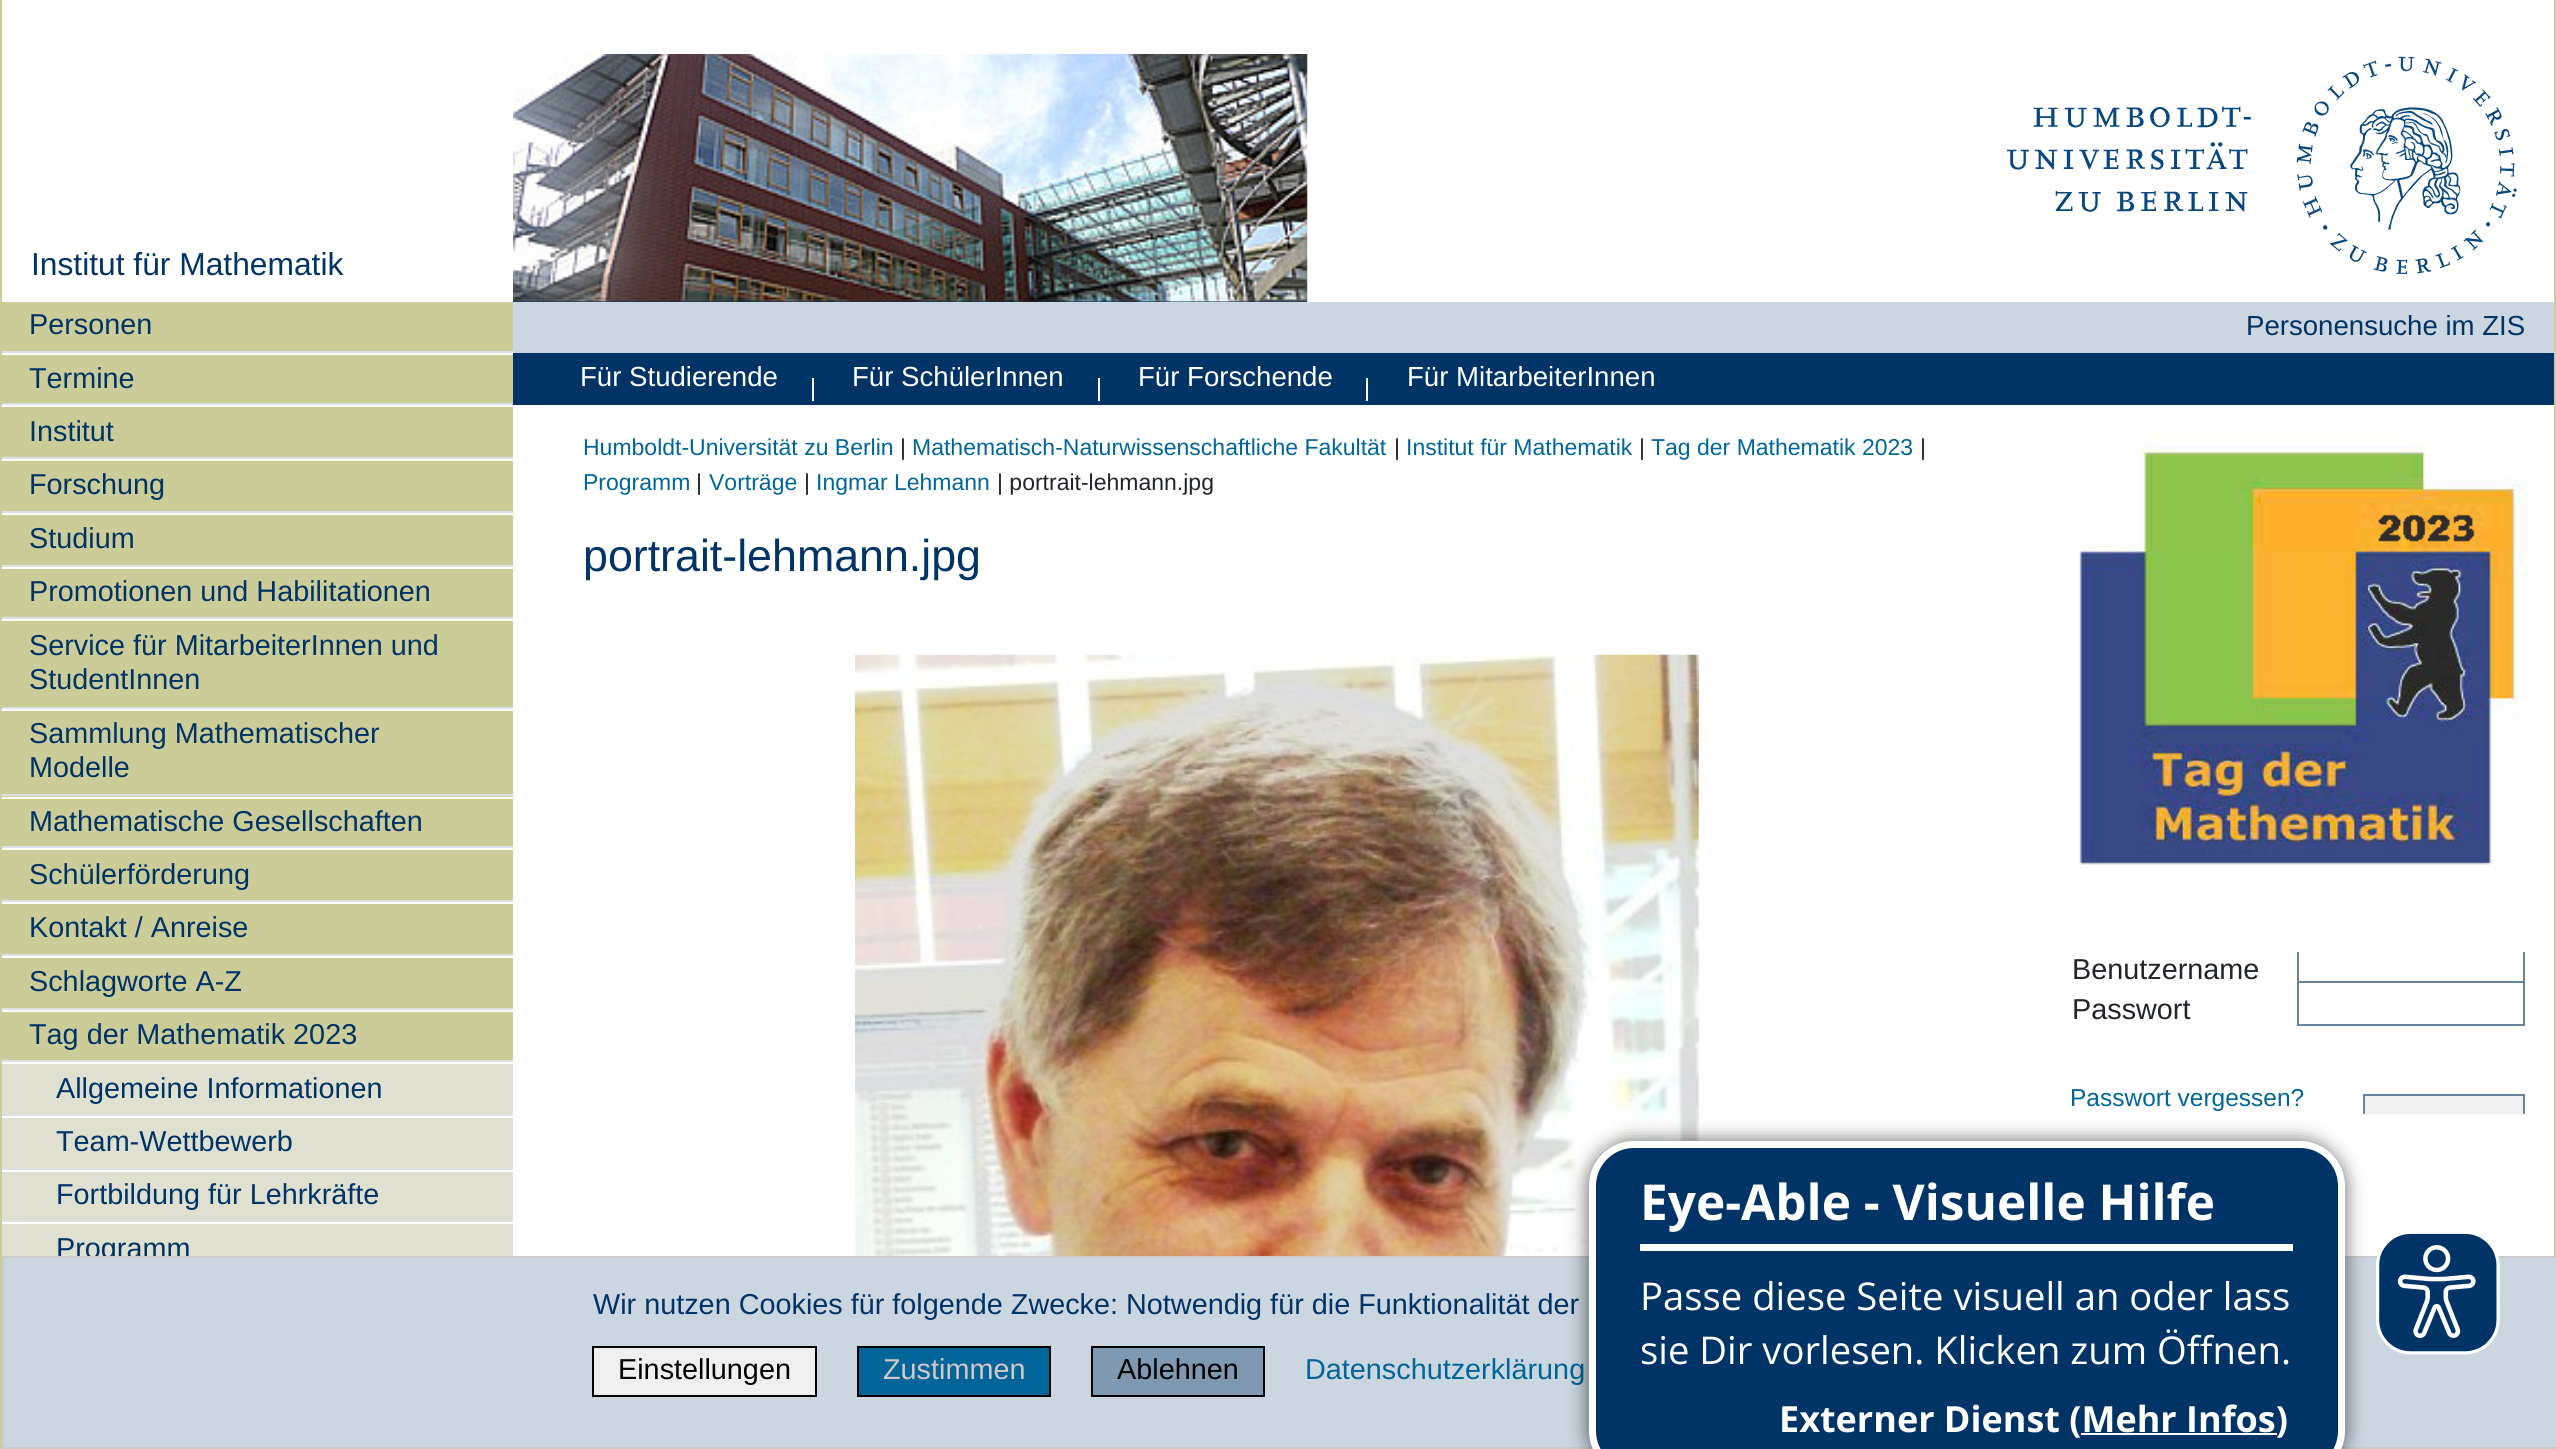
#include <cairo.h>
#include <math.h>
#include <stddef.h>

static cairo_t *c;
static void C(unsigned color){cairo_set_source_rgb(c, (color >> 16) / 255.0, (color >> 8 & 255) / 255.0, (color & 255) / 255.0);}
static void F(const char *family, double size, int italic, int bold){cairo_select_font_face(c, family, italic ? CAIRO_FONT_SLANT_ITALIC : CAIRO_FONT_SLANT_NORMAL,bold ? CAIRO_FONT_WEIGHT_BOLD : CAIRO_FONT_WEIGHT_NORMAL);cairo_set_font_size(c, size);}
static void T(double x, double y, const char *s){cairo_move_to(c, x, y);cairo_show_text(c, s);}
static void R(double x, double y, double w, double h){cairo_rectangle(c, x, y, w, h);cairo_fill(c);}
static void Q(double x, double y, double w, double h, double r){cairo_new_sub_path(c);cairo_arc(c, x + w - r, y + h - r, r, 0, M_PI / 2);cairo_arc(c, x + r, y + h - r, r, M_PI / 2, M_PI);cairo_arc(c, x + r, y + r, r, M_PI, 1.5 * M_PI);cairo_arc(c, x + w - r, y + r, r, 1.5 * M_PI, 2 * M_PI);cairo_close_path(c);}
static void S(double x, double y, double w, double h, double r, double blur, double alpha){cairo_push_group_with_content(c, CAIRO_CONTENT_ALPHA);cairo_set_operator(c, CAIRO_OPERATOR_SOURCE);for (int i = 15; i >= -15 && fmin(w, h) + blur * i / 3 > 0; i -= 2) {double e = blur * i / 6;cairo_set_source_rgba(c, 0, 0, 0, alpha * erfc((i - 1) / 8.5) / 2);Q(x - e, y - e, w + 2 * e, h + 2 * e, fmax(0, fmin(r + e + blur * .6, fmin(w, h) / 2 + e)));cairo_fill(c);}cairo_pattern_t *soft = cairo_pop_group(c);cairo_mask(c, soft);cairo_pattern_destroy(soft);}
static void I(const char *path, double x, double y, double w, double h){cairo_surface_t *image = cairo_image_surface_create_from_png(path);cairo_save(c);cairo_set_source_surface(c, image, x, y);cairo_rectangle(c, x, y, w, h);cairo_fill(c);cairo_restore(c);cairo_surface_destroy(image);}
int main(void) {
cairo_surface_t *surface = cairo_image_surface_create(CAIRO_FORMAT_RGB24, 2556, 1449);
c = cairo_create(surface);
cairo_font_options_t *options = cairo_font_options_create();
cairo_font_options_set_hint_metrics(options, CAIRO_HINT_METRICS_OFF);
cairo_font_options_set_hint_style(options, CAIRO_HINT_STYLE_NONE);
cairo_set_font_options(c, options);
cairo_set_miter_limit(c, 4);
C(0xffffff);
cairo_paint(c);
C(0x003366);
R(513,301,794,1);
I("1.png",513,54,795,248);
I("2.png",2007,56,510,218);
C(0xcccc99);
R(2554,0,2,1256);
R(0,0,2,1449);
F("Liberation Sans",31.75,0,0);
C(0x003366);
T(31,275,"Institut für Mathematik");
C(0xcccc99);
R(2,302,511,49);
F("Liberation Sans",28.8,0,0);
C(0x003366);
T(29,334,"Personen");
C(0xcccc99);
R(2,355,511,48);
C(0xdee2e6);
R(2,351,511,2);
C(0x003366);
T(29,388,"Termine");
C(0xcccc99);
R(2,407,511,50);
C(0xdee2e6);
R(2,403,511,2);
C(0x003366);
T(29,441,"Institut");
C(0xcccc99);
R(2,461,511,50);
C(0xdee2e6);
R(2,457,511,2);
C(0x003366);
T(29,494,"Forschung");
C(0xcccc99);
R(2,515,511,50);
C(0xdee2e6);
R(2,511,511,2);
C(0x003366);
T(29,548,"Studium");
C(0xcccc99);
R(2,569,511,48);
C(0xdee2e6);
R(2,565,511,2);
C(0x003366);
T(29,601,"Promotionen und Habilitationen");
C(0xcccc99);
R(2,621,511,86);
C(0xdee2e6);
R(2,617,511,2);
C(0x003366);
T(29,655,"Service für MitarbeiterInnen und");
T(29,689,"StudentInnen");
C(0xcccc99);
R(2,711,511,83);
C(0xdee2e6);
R(2,707,511,2);
C(0x003366);
T(29,743,"Sammlung Mathematischer");
T(29,777,"Modelle");
C(0xcccc99);
R(2,796,511,50);
C(0xdee2e6);
R(2,794,511,2);
C(0xffffff);
R(2,797,511,2);
C(0x003366);
T(29,831,"Mathematische Gesellschaften");
C(0xcccc99);
R(2,850,511,50);
C(0xdee2e6);
R(2,846,511,2);
C(0x003366);
T(29,884,"Schülerförderung");
C(0xcccc99);
R(2,904,511,50);
C(0xdee2e6);
R(2,900,511,2);
C(0x003366);
T(29,937,"Kontakt / Anreise");
C(0xcccc99);
R(2,958,511,50);
C(0xdee2e6);
R(2,954,511,2);
C(0x003366);
T(29,991,"Schlagworte A-Z");
C(0xcccc99);
R(2,1012,511,48);
C(0xdee2e6);
R(2,1008,511,2);
C(0x003366);
T(29,1044,"Tag der Mathematik 2023");
C(0xe0e0d1);
R(2,1064,511,50);
C(0xdee2e6);
R(2,1060,511,2);
C(0x003366);
T(56,1098,"Allgemeine Informationen");
C(0xe0e0d1);
R(2,1118,511,50);
C(0xdee2e6);
R(2,1114,511,2);
C(0x003366);
T(56,1151,"Team-Wettbewerb");
C(0xe0e0d1);
R(2,1172,511,48);
C(0xdee2e6);
R(2,1168,511,2);
C(0x003366);
T(56,1204,"Fortbildung für Lehrkräfte");
C(0xe0e0d1);
R(2,1224,511,32);
C(0xdee2e6);
R(2,1220,511,2);
C(0x003366);
T(56,1258,"Programm");
C(0xccd6e0);
R(513,302,2041,51);
F("Liberation Sans",27.6,0,0);
C(0x003366);
T(2246,335,"Personensuche im ZIS");
R(513,353,2041,52);
C(0xffffff);
T(580,386,"Für Studierende");
R(812,378,2,23);
T(852,386,"Für SchülerInnen");
R(1098,378,2,23);
T(1138,386,"Für Forschende");
R(1366,378,2,23);
T(1407,386,"Für MitarbeiterInnen");
F("Liberation Sans",23,0,0);
C(0x006699);
T(583,455,"Humboldt-Universität zu Berlin");
C(0x212529);
T(900,455,"|");
C(0x006699);
T(912,455,"Mathematisch-Naturwissenschaftliche Fakultät");
C(0x212529);
T(1394,455,"|");
C(0x006699);
T(1406,455,"Institut für Mathematik");
C(0x212529);
T(1639,455,"|");
C(0x006699);
T(1651,455,"Tag der Mathematik 2023");
C(0x212529);
T(1920,455,"|");
C(0x006699);
T(583,490,"Programm");
C(0x212529);
T(696,490,"|");
C(0x006699);
T(709,490,"Vorträge");
C(0x212529);
T(804,490,"|");
C(0x006699);
T(816,490,"Ingmar Lehmann");
C(0x212529);
T(997,490,"| portrait-lehmann.jpg");
F("Liberation Sans",44.75,0,0);
C(0x003366);
T(583,571,"portrait-lehmann.jpg");
I("3.png",855,654,844,602);
I("4.png",2079,430,450,439);
F("Liberation Sans",28.8,0,0);
C(0x212529);
T(2072,979,"Benutzername");
cairo_save(c);
cairo_rectangle(c,2043,952,511,162);
cairo_clip(c);
cairo_rectangle(c,2298,942,226,43);
C(0x6685a3);
cairo_stroke(c);
cairo_restore(c);
T(2072,1019,"Passwort");
C(0xffffff);
R(2299,984,224,2);
cairo_rectangle(c,2298,982,226,43);
C(0x6685a3);
cairo_stroke(c);
C(0xefefef);
R(2365,1096,158,18);
cairo_save(c);
cairo_rectangle(c,2043,952,511,162);
cairo_clip(c);
cairo_rectangle(c,2364,1095,160,40);
C(0x6685a3);
cairo_stroke(c);
cairo_restore(c);
F("Liberation Sans",24.5,0,0);
C(0x006699);
T(2070,1106,"Passwort vergessen?");
C(0xccd6e0);
cairo_rectangle(c,3,1257,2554,191);
cairo_fill_preserve(c);
C(0xcccccc);
cairo_stroke(c);
F("Liberation Sans",28.8,0,0);
C(0x003366);
T(593,1314,"Wir nutzen Cookies für folgende Zwecke: Notwendig für die Funktionalität der");
C(0xefefef);
cairo_rectangle(c,593,1347,223,49);
cairo_fill_preserve(c);
C(0x000000);
cairo_stroke(c);
T(618,1379,"Einstellungen");
C(0x006699);
cairo_rectangle(c,858,1347,192,49);
cairo_fill_preserve(c);
C(0x000000);
cairo_stroke(c);
C(0xd5c7c7);
T(883,1379,"Zustimmen");
C(0x8099b2);
cairo_rectangle(c,1092,1347,172,49);
cairo_fill_preserve(c);
C(0x000000);
cairo_stroke(c);
T(1117,1379,"Ablehnen");
C(0x006699);
T(1305,1379,"Datenschutzerklärung");
C(0x000000);
S(1586,1139,761,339,47,9,.5);
C(0x003366);
Q(1592.5,1144.5,749,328,41.5);
cairo_fill_preserve(c);
C(0xffffff);
cairo_set_line_width(c,7);
cairo_stroke(c);
R(1640,1244,653,7);
F("Open Sans",49.5,0,1);
T(1640,1220,"Eye-Able - Visuelle Hilfe");
F("Open Sans",38.25,0,0);
T(1640,1310,"Passe diese Seite visuell an oder lass");
T(1640,1364,"sie Dir vorlesen. Klicken zum Öffnen.");
F("Open Sans",36,0,1);
T(1779,1432,"Externer Dienst (Mehr Infos)");
R(2081,1433,196,2);
I("5.png",2376,1233,124,122);
cairo_surface_write_to_png(surface, "o.png");
cairo_font_options_destroy(options);
cairo_destroy(c);
cairo_surface_destroy(surface);
return 0;
}
